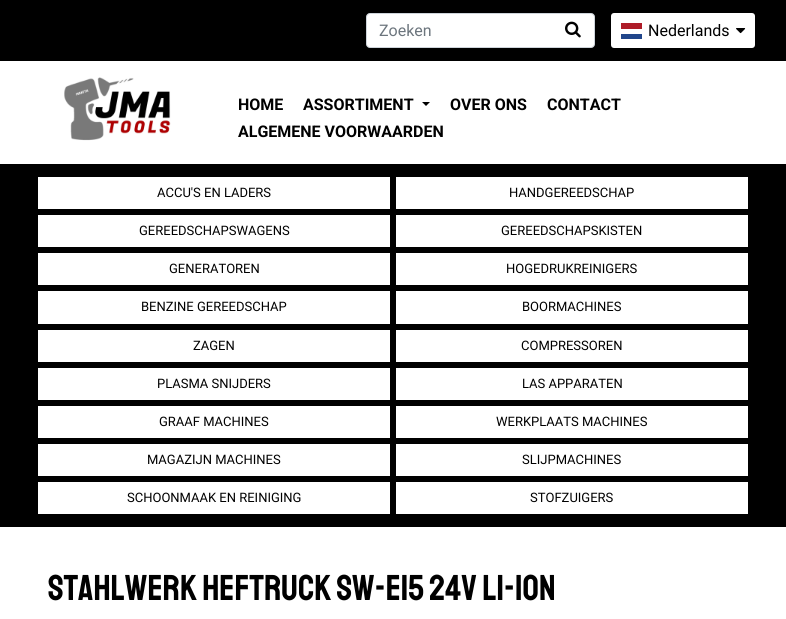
#include <cairo.h>
#include <math.h>
#include <stddef.h>

static cairo_t *c;
static void C(unsigned color){cairo_set_source_rgb(c, (color >> 16) / 255.0, (color >> 8 & 255) / 255.0, (color & 255) / 255.0);}
static void F(const char *family, double size, int italic, int bold){cairo_select_font_face(c, family, italic ? CAIRO_FONT_SLANT_ITALIC : CAIRO_FONT_SLANT_NORMAL,bold ? CAIRO_FONT_WEIGHT_BOLD : CAIRO_FONT_WEIGHT_NORMAL);cairo_set_font_size(c, size);}
static void T(double x, double y, const char *s){cairo_move_to(c, x, y);cairo_show_text(c, s);}
static void R(double x, double y, double w, double h){cairo_rectangle(c, x, y, w, h);cairo_fill(c);}
static void Q(double x, double y, double w, double h, double r){cairo_new_sub_path(c);cairo_arc(c, x + w - r, y + h - r, r, 0, M_PI / 2);cairo_arc(c, x + r, y + h - r, r, M_PI / 2, M_PI);cairo_arc(c, x + r, y + r, r, M_PI, 1.5 * M_PI);cairo_arc(c, x + w - r, y + r, r, 1.5 * M_PI, 2 * M_PI);cairo_close_path(c);}
static void I(const char *path, double x, double y, double w, double h){cairo_surface_t *image = cairo_image_surface_create_from_png(path);cairo_save(c);cairo_set_source_surface(c, image, x, y);cairo_rectangle(c, x, y, w, h);cairo_fill(c);cairo_restore(c);cairo_surface_destroy(image);}
int main(void) {
cairo_surface_t *surface = cairo_image_surface_create(CAIRO_FORMAT_RGB24, 786, 619);
c = cairo_create(surface);
cairo_font_options_t *options = cairo_font_options_create();
cairo_font_options_set_hint_metrics(options, CAIRO_HINT_METRICS_OFF);
cairo_font_options_set_hint_style(options, CAIRO_HINT_STYLE_NONE);
cairo_set_font_options(c, options);
cairo_set_miter_limit(c, 4);
C(0xffffff);
cairo_paint(c);
C(0x000000);
R(0,0,786,61);
C(0xffffff);
Q(366.5,13.5,228,34,3.5);
cairo_fill_preserve(c);
C(0xced4da);
cairo_set_line_width(c,1);
cairo_stroke(c);
F("Roboto",16,0,0);
C(0x6c757d);
T(379,36,"Zoeken");
I("1.png",565,21,16,17);
C(0xffffff);
Q(611,13,144,35,3);
cairo_fill(c);
C(0x21468b);
R(621,34,21,5);
C(0xae1c28);
R(621,23,21,6);
C(0x000000);
T(648,36,"Nederlands");
I("2.png",736,28,10,6);
I("3.png",64,77,107,64);
F("Roboto",16,0,1);
T(238,110,"HOME");
T(303,110,"ASSORTIMENT");
cairo_new_path(c);
cairo_move_to(c,422,102);
cairo_line_to(c,430,102);
cairo_line_to(c,426,106);
cairo_close_path(c);
cairo_fill(c);
T(450,110,"OVER ONS");
T(547,110,"CONTACT");
T(238,137,"ALGEMENE VOORWAARDEN");
R(0,164,786,363);
C(0xffffff);
R(38,177,352,32);
F("Roboto",13,0,0);
C(0x000000);
T(157,197,"ACCU'S EN LADERS");
C(0xffffff);
R(396,177,352,32);
C(0x000000);
T(509,197,"HANDGEREEDSCHAP");
C(0xffffff);
R(38,215,352,32);
C(0x000000);
T(139,235,"GEREEDSCHAPSWAGENS");
C(0xffffff);
R(396,215,352,32);
C(0x000000);
T(501,235,"GEREEDSCHAPSKISTEN");
C(0xffffff);
R(38,253,352,32);
C(0x000000);
T(169,273,"GENERATOREN");
C(0xffffff);
R(396,253,352,32);
C(0x000000);
T(506,273,"HOGEDRUKREINIGERS");
C(0xffffff);
R(38,291,352,33);
C(0x000000);
T(141,311,"BENZINE GEREEDSCHAP");
C(0xffffff);
R(396,291,352,33);
C(0x000000);
T(522,311,"BOORMACHINES");
C(0xffffff);
R(38,330,352,32);
C(0x000000);
T(193,350,"ZAGEN");
C(0xffffff);
R(396,330,352,32);
C(0x000000);
T(521,350,"COMPRESSOREN");
C(0xffffff);
R(38,368,352,32);
C(0x000000);
T(157,388,"PLASMA SNIJDERS");
C(0xffffff);
R(396,368,352,32);
C(0x000000);
T(522,388,"LAS APPARATEN");
C(0xffffff);
R(38,406,352,32);
C(0x000000);
T(159,426,"GRAAF MACHINES");
C(0xffffff);
R(396,406,352,32);
C(0x000000);
T(496,426,"WERKPLAATS MACHINES");
C(0xffffff);
R(38,444,352,32);
C(0x000000);
T(147,464,"MAGAZIJN MACHINES");
C(0xffffff);
R(396,444,352,32);
C(0x000000);
T(522,464,"SLIJPMACHINES");
C(0xffffff);
R(38,482,352,32);
C(0x000000);
T(127,502,"SCHOONMAAK EN REINIGING");
C(0xffffff);
R(396,482,352,32);
C(0x000000);
T(530,502,"STOFZUIGERS");
F("Staatliches",36,0,0);
T(48,600,"Stahlwerk Heftruck SW-e15 24V Li-ION");
cairo_surface_write_to_png(surface, "o.png");
cairo_font_options_destroy(options);
cairo_destroy(c);
cairo_surface_destroy(surface);
return 0;
}
